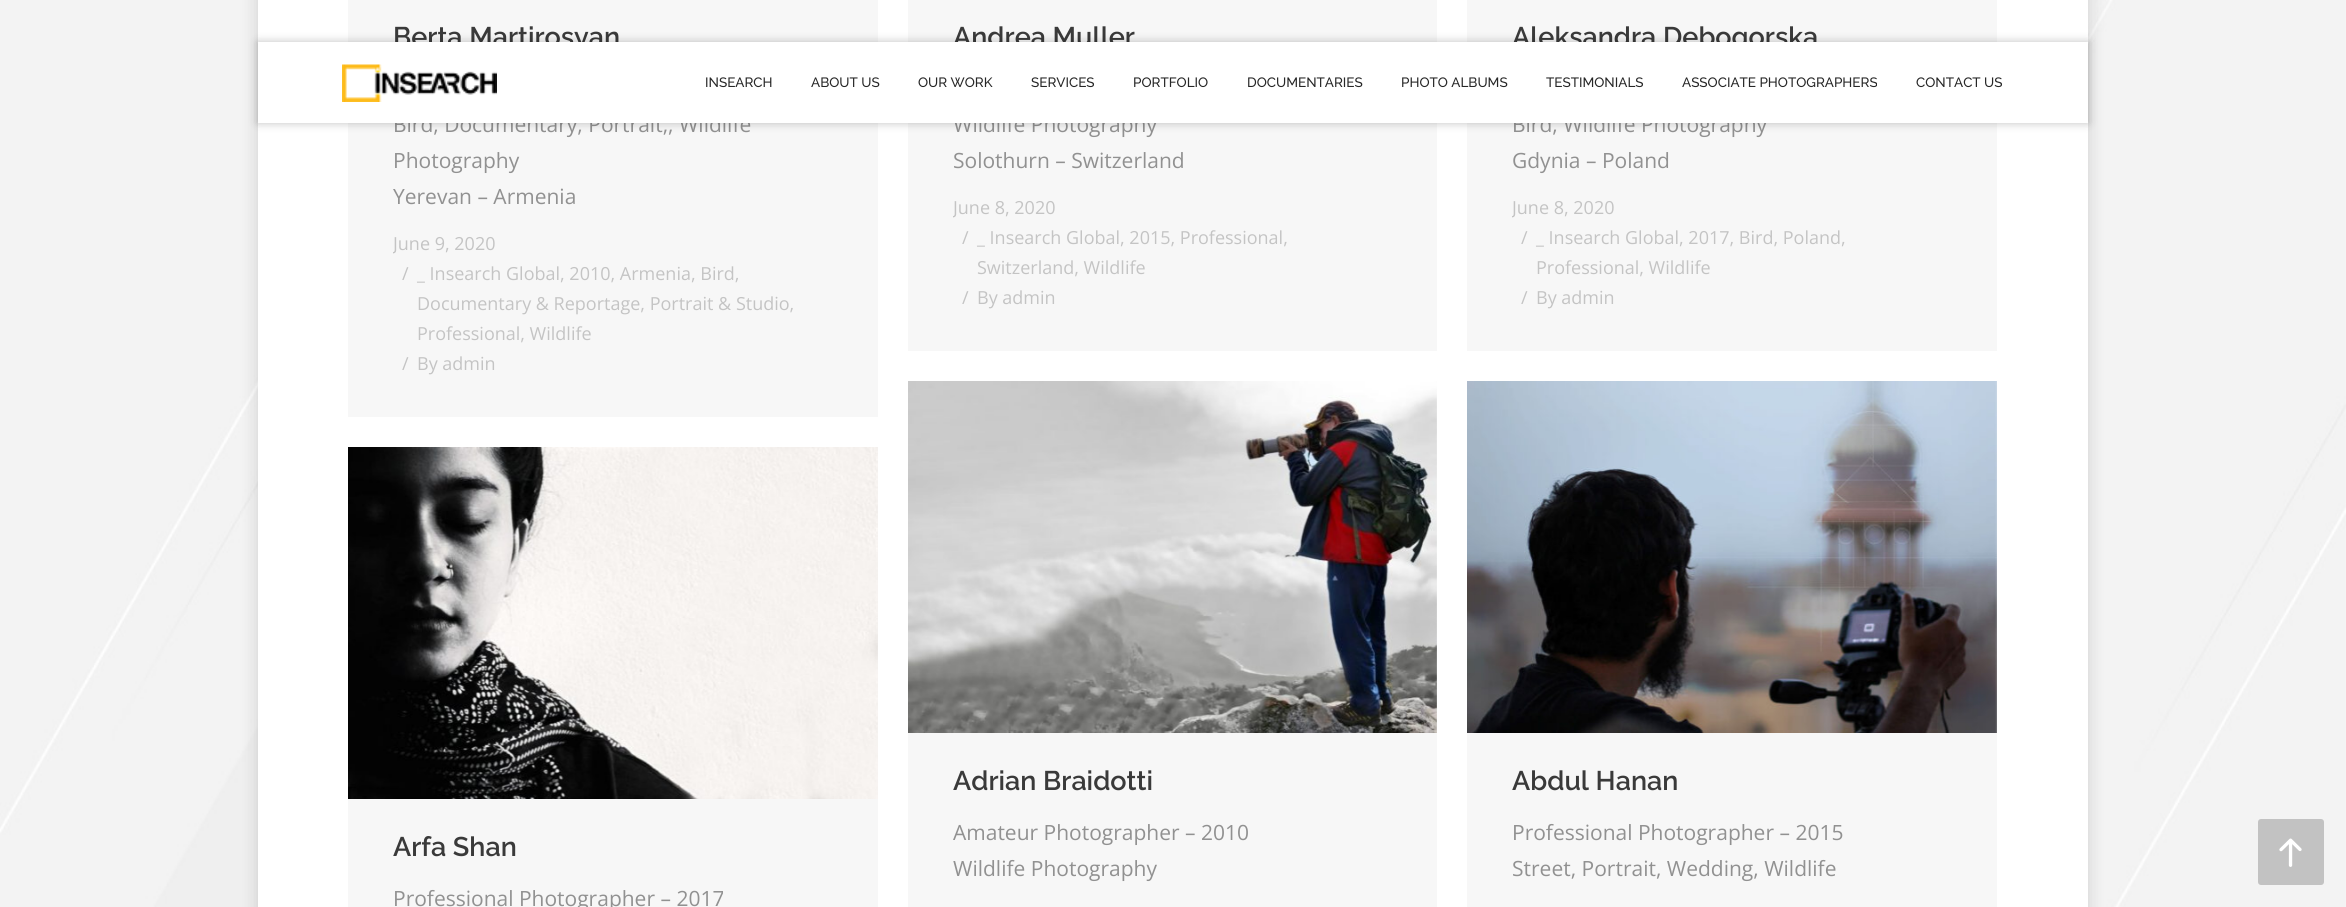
#include <cairo.h>
#include <math.h>
#include <stddef.h>

static cairo_t *c;
static void C(unsigned color){cairo_set_source_rgb(c, (color >> 16) / 255.0, (color >> 8 & 255) / 255.0, (color & 255) / 255.0);}
static void F(const char *family, double size, int italic, int bold){cairo_select_font_face(c, family, italic ? CAIRO_FONT_SLANT_ITALIC : CAIRO_FONT_SLANT_NORMAL,bold ? CAIRO_FONT_WEIGHT_BOLD : CAIRO_FONT_WEIGHT_NORMAL);cairo_set_font_size(c, size);}
static void T(double x, double y, const char *s){cairo_move_to(c, x, y);cairo_show_text(c, s);}
static void R(double x, double y, double w, double h){cairo_rectangle(c, x, y, w, h);cairo_fill(c);}
static void Q(double x, double y, double w, double h, double r){cairo_new_sub_path(c);cairo_arc(c, x + w - r, y + h - r, r, 0, M_PI / 2);cairo_arc(c, x + r, y + h - r, r, M_PI / 2, M_PI);cairo_arc(c, x + r, y + r, r, M_PI, 1.5 * M_PI);cairo_arc(c, x + w - r, y + r, r, 1.5 * M_PI, 2 * M_PI);cairo_close_path(c);}
static void S(double x, double y, double w, double h, double r, double blur, double alpha){cairo_push_group_with_content(c, CAIRO_CONTENT_ALPHA);cairo_set_operator(c, CAIRO_OPERATOR_SOURCE);for (int i = 15; i >= -15 && fmin(w, h) + blur * i / 3 > 0; i -= 2) {double e = blur * i / 6;cairo_set_source_rgba(c, 0, 0, 0, alpha * erfc((i - 1) / 8.5) / 2);Q(x - e, y - e, w + 2 * e, h + 2 * e, fmax(0, fmin(r + e + blur * .6, fmin(w, h) / 2 + e)));cairo_fill(c);}cairo_pattern_t *soft = cairo_pop_group(c);cairo_mask(c, soft);cairo_pattern_destroy(soft);}
static void I(const char *path, double x, double y, double w, double h){cairo_surface_t *image = cairo_image_surface_create_from_png(path);cairo_save(c);cairo_set_source_surface(c, image, x, y);cairo_rectangle(c, x, y, w, h);cairo_fill(c);cairo_restore(c);cairo_surface_destroy(image);}
int main(void) {
cairo_surface_t *surface = cairo_image_surface_create(CAIRO_FORMAT_RGB24, 2346, 907);
c = cairo_create(surface);
cairo_font_options_t *options = cairo_font_options_create();
cairo_font_options_set_hint_metrics(options, CAIRO_HINT_METRICS_OFF);
cairo_font_options_set_hint_style(options, CAIRO_HINT_STYLE_NONE);
cairo_set_font_options(c, options);
cairo_set_miter_limit(c, 4);
C(0xffffff);
cairo_paint(c);
I("1.png",0,0,2346,907);
C(0x000000);
S(258,-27,1830,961,0,9,.15);
C(0xffffff);
R(258,0,1830,907);
C(0xf7f7f7);
R(348,0,530,417);
F("Raleway SemiBold",27,0,0);
C(0x3a3a3a);
T(393,46,"Berta Martirosyan");
F("Open Sans",21,0,0);
C(0x919191);
T(393,132,"Bird, Documentary, Portrait,, Wildlife");
T(393,168,"Photography");
T(393,204,"Yerevan – Armenia");
cairo_save(c);
cairo_rectangle(c,393,215,440,165);
cairo_clip(c);
F("Open Sans",18,0,0);
C(0xc4c4c4);
T(393,250,"June 9, 2020");
cairo_restore(c);
F("Open Sans",18,0,0);
C(0xc4c4c4);
T(402,280,"/");
T(417,280,"_ Insearch Global, 2010, Armenia, Bird,");
T(417,310,"Documentary & Reportage, Portrait & Studio,");
T(417,340,"Professional, Wildlife");
T(402,370,"/");
T(417,370,"By admin");
C(0xf7f7f7);
R(908,0,529,351);
F("Raleway SemiBold",27,0,0);
C(0x3a3a3a);
T(953,46,"Andrea Muller");
F("Open Sans",21,0,0);
C(0x919191);
T(953,132,"Wildlife Photography");
T(953,168,"Solothurn – Switzerland");
cairo_save(c);
cairo_rectangle(c,953,179,439,135);
cairo_clip(c);
F("Open Sans",18,0,0);
C(0xc4c4c4);
T(953,214,"June 8, 2020");
cairo_restore(c);
F("Open Sans",18,0,0);
C(0xc4c4c4);
T(962,244,"/");
T(977,244,"_ Insearch Global, 2015, Professional,");
T(977,274,"Switzerland, Wildlife");
T(962,304,"/");
T(977,304,"By admin");
C(0xf7f7f7);
R(1467,0,530,351);
F("Raleway SemiBold",27,0,0);
C(0x3a3a3a);
T(1512,46,"Aleksandra Debogorska");
F("Open Sans",21,0,0);
C(0x919191);
T(1512,132,"Bird, Wildlife Photography");
T(1512,168,"Gdynia – Poland");
cairo_save(c);
cairo_rectangle(c,1512,179,440,135);
cairo_clip(c);
F("Open Sans",18,0,0);
C(0xc4c4c4);
T(1512,214,"June 8, 2020");
cairo_restore(c);
F("Open Sans",18,0,0);
C(0xc4c4c4);
T(1521,244,"/");
T(1536,244,"_ Insearch Global, 2017, Bird, Poland,");
T(1536,274,"Professional, Wildlife");
T(1521,304,"/");
T(1536,304,"By admin");
C(0xf7f7f7);
R(348,447,530,460);
I("2.png",348,447,530,352);
F("Raleway SemiBold",27,0,0);
C(0x3a3a3a);
T(393,856,"Arfa Shan");
F("Open Sans",21,0,0);
C(0x919191);
T(393,906,"Professional Photographer – 2017");
C(0xf7f7f7);
R(908,381,529,526);
I("3.png",908,381,529,352);
F("Raleway SemiBold",27,0,0);
C(0x3a3a3a);
T(953,790,"Adrian Braidotti");
F("Open Sans",21,0,0);
C(0x919191);
T(953,840,"Amateur Photographer – 2010");
T(953,876,"Wildlife Photography");
C(0xf7f7f7);
R(1467,381,530,526);
I("4.png",1467,381,530,352);
F("Raleway SemiBold",27,0,0);
C(0x3a3a3a);
T(1512,790,"Abdul Hanan");
F("Open Sans",21,0,0);
C(0x919191);
T(1512,840,"Professional Photographer – 2015");
T(1512,876,"Street, Portrait, Wedding, Wildlife");
C(0xc2c2c2);
Q(2258,819,66,66,3);
cairo_fill(c);
I("5.png",2279,838,23,29);
C(0x000000);
S(258,42,1830,81,0,4.5,.25);
C(0xffffff);
R(258,42,1830,81);
I("6.png",342,64,155,38);
F("Raleway Medium",13.5,0,0);
C(0x272727);
T(705,87,"INSEARCH");
T(811,87,"ABOUT US");
T(918,87,"OUR WORK");
T(1031,87,"SERVICES");
T(1133,87,"PORTFOLIO");
T(1247,87,"DOCUMENTARIES");
T(1401,87,"PHOTO ALBUMS");
T(1546,87,"TESTIMONIALS");
T(1682,87,"ASSOCIATE PHOTOGRAPHERS");
T(1916,87,"CONTACT US");
cairo_surface_write_to_png(surface, "o.png");
cairo_font_options_destroy(options);
cairo_destroy(c);
cairo_surface_destroy(surface);
return 0;
}
